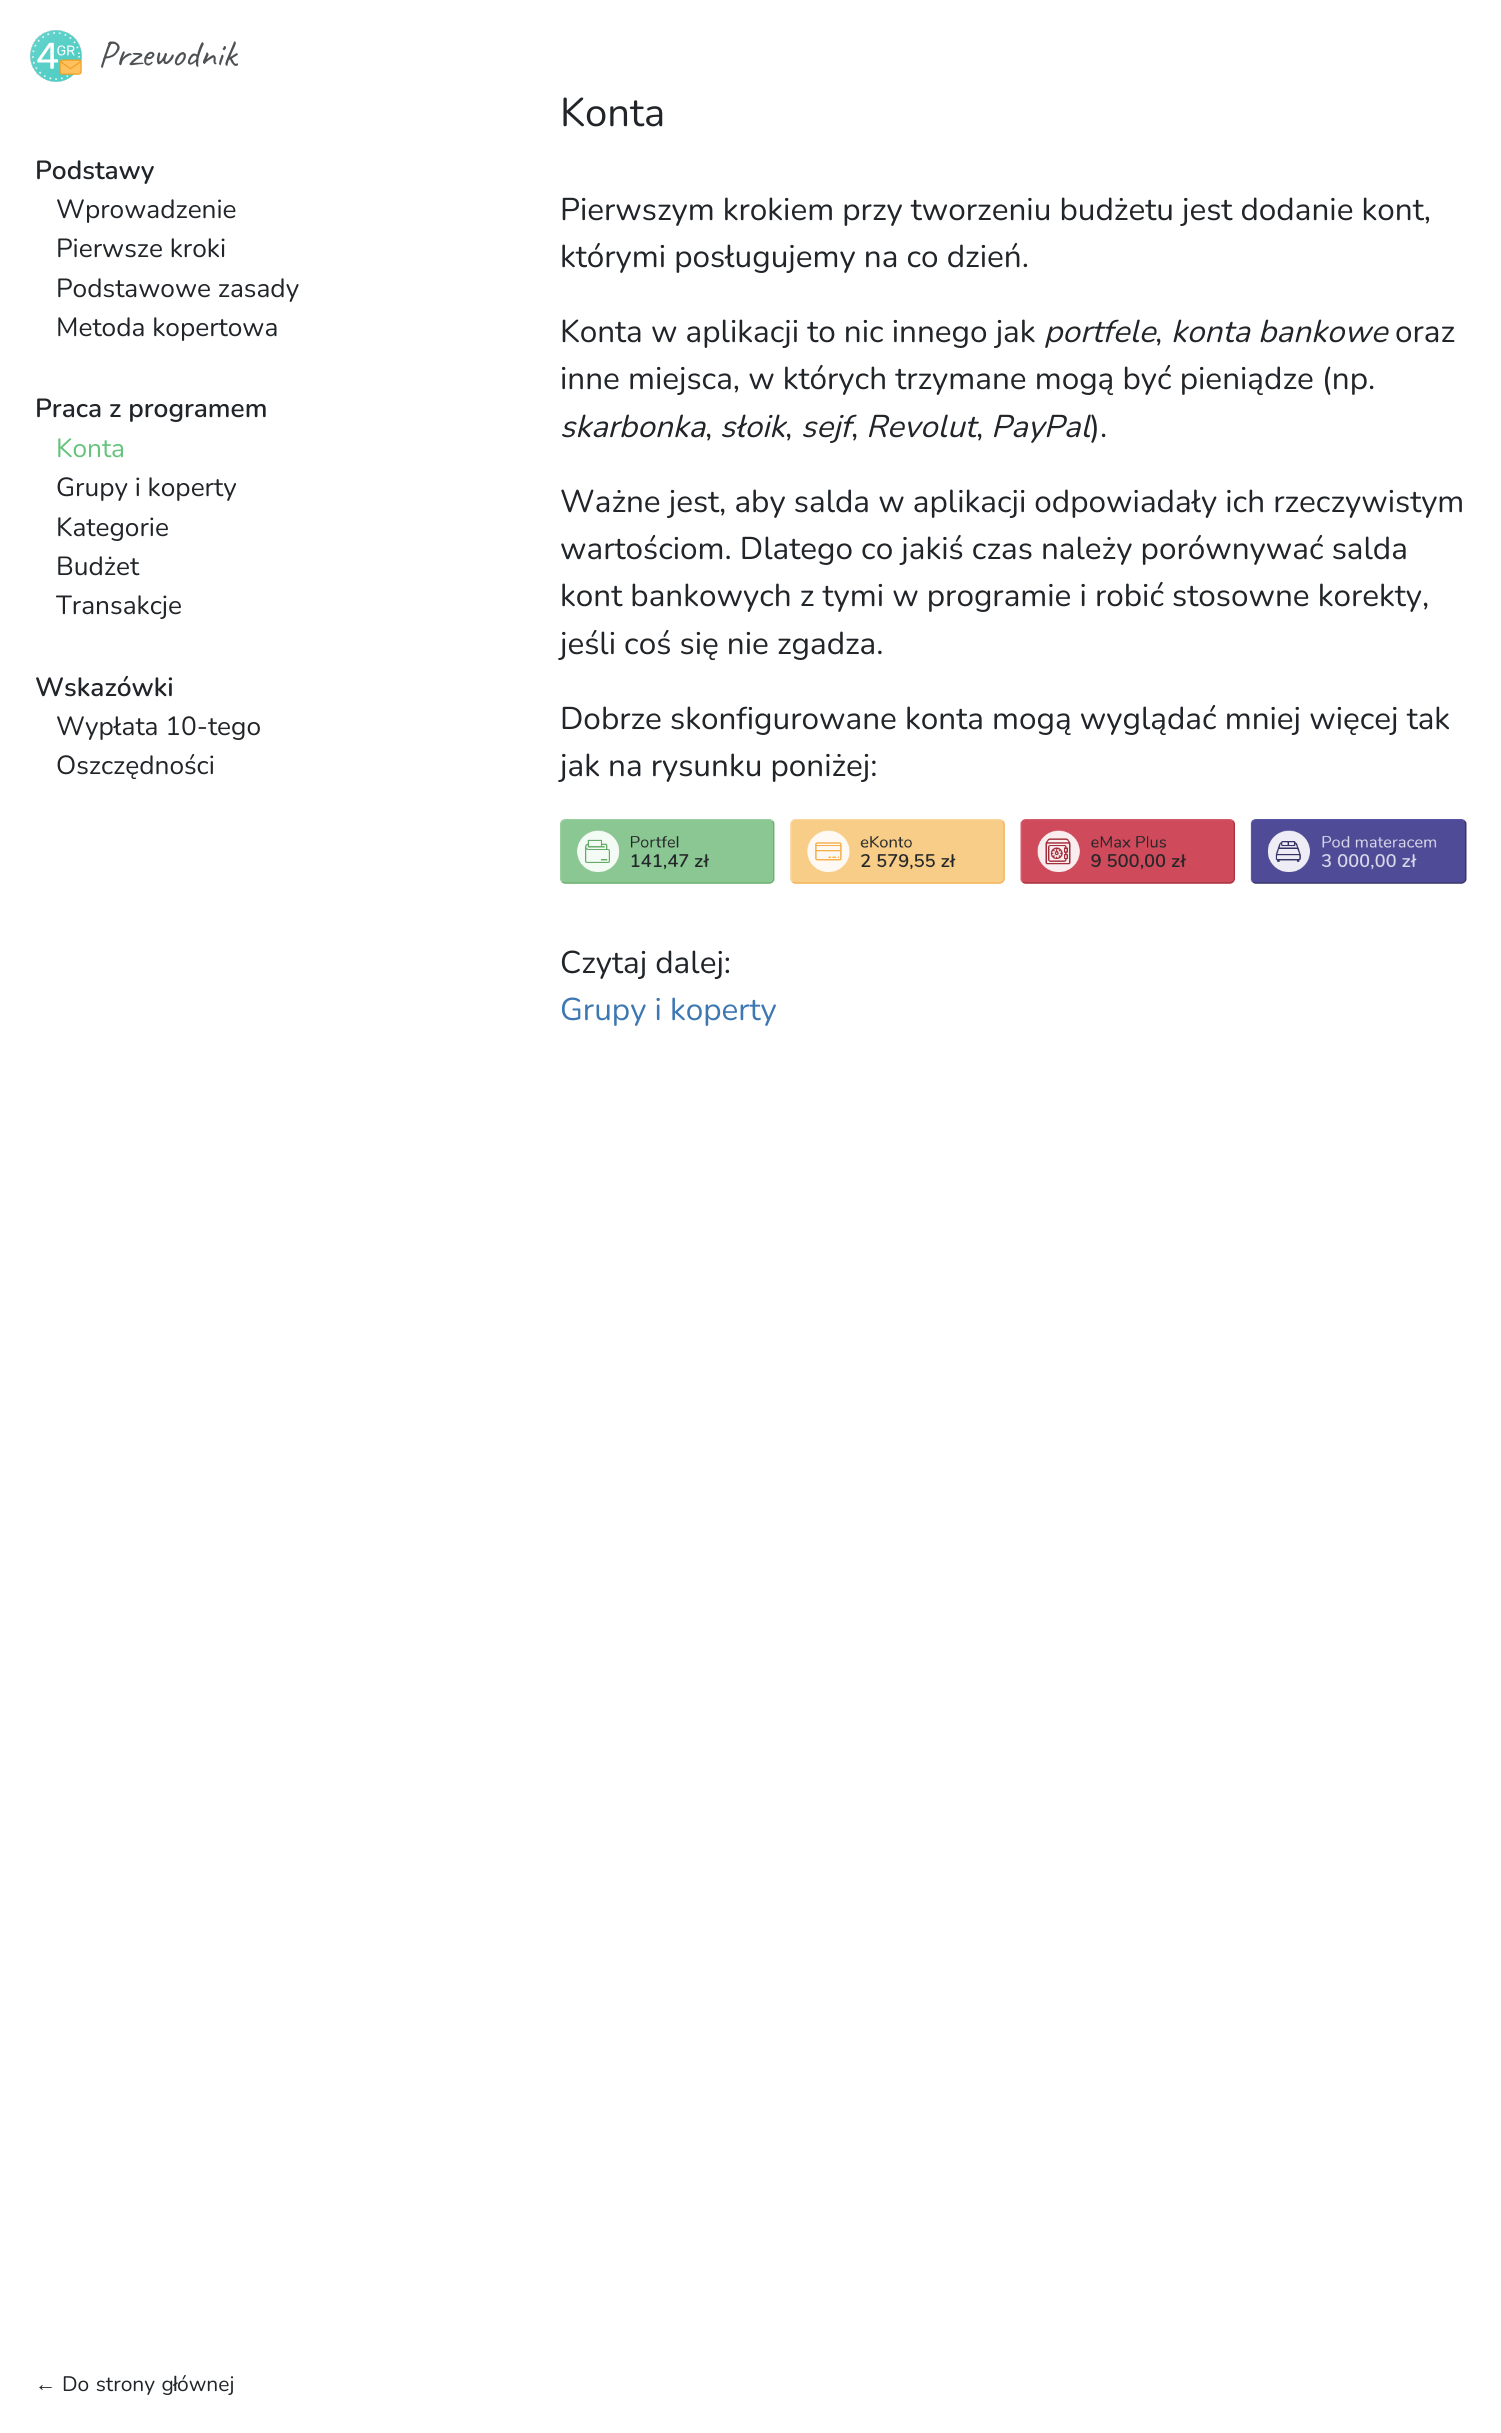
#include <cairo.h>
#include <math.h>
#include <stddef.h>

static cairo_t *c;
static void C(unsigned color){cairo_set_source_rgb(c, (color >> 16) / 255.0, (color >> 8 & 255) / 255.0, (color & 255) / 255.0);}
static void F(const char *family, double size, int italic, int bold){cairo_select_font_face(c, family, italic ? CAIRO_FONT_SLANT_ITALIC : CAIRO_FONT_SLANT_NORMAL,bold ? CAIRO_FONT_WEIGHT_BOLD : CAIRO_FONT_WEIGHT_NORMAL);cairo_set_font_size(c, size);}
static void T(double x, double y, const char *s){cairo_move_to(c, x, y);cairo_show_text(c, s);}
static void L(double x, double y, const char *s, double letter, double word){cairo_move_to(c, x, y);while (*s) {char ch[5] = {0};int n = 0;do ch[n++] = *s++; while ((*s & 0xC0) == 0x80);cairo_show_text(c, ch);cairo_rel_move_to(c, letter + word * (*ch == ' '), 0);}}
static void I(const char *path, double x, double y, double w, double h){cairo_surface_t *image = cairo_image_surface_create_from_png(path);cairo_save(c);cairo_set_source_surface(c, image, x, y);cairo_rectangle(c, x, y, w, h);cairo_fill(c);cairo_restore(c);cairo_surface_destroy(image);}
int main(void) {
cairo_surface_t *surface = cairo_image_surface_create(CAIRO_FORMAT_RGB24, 1501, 2433);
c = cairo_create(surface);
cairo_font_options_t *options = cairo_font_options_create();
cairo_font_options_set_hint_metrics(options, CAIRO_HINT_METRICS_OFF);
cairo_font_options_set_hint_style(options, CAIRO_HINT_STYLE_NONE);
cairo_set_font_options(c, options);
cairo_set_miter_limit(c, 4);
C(0xffffff);
cairo_paint(c);
I("1.png",30,30,52,52);
F("Caveat",37,0,0);
C(0x4d5154);
T(98,66,"Przewodnik");
F("Nunito SemiBold",26.25,0,0);
C(0x212529);
T(35,179,"Podstawy");
F("Nunito",26.25,0,0);
T(56,218,"Wprowadzenie");
T(56,257,"Pierwsze kroki");
T(56,297,"Podstawowe zasady");
T(56,336,"Metoda kopertowa");
F("Nunito SemiBold",26.25,0,0);
T(35,417,"Praca z programem");
F("Nunito",26.25,0,0);
C(0x65c37c);
T(56,457,"Konta");
C(0x212529);
T(56,496,"Grupy i koperty");
T(56,536,"Kategorie");
T(56,575,"Budżet");
T(56,614,"Transakcje");
F("Nunito SemiBold",26.25,0,0);
T(35,696,"Wskazówki");
F("Nunito",26.25,0,0);
T(56,735,"Wypłata 10-tego");
T(56,774,"Oszczędności");
F("Liberation Sans",21,0,0);
T(35,2391,"←");
F("Nunito",21,0,0);
L(62,2391,"Do strony g",0,1);
F("Liberation Sans",21,0,0);
T(173,2391,"ł");
F("Nunito",21,0,0);
T(177,2391,"ównej");
F("Nunito",40,0,0);
T(560,126,"Konta");
F("Nunito",31.5,0,0);
T(560,220,"Pierwszym krokiem przy tworzeniu budżetu jest dodanie kont,");
T(560,267,"którymi posługujemy na co dzień.");
T(560,342,"Konta w aplikacji to nic innego jak");
F("Nunito",31.5,1,0);
T(1044,342,"portfele");
F("Nunito",31.5,0,0);
T(1155,342,",");
F("Nunito",31.5,1,0);
T(1171,342,"konta bankowe");
F("Nunito",31.5,0,0);
T(1395,342,"oraz");
T(560,389,"inne miejsca, w których trzymane mogą być pieniądze (np.");
F("Nunito",31.5,1,0);
T(560,437,"skarbonka");
F("Nunito",31.5,0,0);
T(705,437,",");
F("Nunito",31.5,1,0);
T(720,437,"słoik");
F("Nunito",31.5,0,0);
T(785,437,",");
F("Nunito",31.5,1,0);
T(801,437,"sejf");
T(866,437,"Revolut");
T(991,437,"PayPal");
F("Nunito",31.5,0,0);
T(1090,437,").");
T(851,437,",");
T(976,437,",");
T(560,512,"Ważne jest, aby salda w aplikacji odpowiadały ich rzeczywistym");
T(560,559,"wartościom. Dlatego co jakiś czas należy porównywać salda");
T(560,606,"kont bankowych z tymi w programie i robić stosowne korekty,");
T(560,654,"jeśli coś się nie zgadza.");
T(560,729,"Dobrze skonfigurowane konta mogą wyglądać mniej więcej tak");
T(560,776,"jak na rysunku poniżej:");
I("2.png",560,819,907,65);
T(560,973,"Czytaj dalej:");
C(0x3e78b2);
T(560,1020,"Grupy i koperty");
cairo_surface_write_to_png(surface, "o.png");
cairo_font_options_destroy(options);
cairo_destroy(c);
cairo_surface_destroy(surface);
return 0;
}
